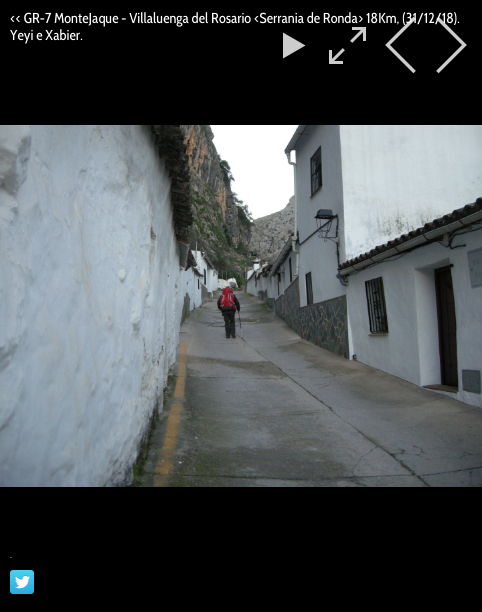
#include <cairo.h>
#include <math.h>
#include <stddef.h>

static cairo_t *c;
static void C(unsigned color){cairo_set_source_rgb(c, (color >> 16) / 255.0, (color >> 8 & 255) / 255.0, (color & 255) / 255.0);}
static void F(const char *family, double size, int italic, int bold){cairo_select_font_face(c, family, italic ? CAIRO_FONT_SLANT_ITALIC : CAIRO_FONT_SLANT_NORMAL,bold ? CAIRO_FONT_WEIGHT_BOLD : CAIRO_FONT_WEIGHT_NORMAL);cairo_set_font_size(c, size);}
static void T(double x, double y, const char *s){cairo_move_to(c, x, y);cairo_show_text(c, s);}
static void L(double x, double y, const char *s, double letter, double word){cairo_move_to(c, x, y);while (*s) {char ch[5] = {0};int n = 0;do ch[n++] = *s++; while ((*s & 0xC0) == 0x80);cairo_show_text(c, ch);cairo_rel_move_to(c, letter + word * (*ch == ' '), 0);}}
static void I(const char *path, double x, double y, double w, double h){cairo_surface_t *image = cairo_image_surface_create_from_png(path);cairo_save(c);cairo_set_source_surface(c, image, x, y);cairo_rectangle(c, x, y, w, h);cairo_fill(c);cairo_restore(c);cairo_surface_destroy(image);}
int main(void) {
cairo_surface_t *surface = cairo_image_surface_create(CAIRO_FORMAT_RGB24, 482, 612);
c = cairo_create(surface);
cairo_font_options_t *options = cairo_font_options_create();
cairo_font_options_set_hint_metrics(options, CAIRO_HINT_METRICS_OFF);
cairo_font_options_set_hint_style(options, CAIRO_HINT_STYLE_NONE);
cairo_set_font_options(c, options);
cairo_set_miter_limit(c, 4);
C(0x000000);
cairo_paint(c);
I("3.png",385,16,31,58);
I("4.png",436,16,31,58);
F("Cabin Condensed",14.4,0,0);
C(0xffffff);
T(10,23,"<< GR-7 MonteJaque - Villaluenga del Rosario <Serrania de Ronda> 18Km, (31/12/18).");
T(10,40,"Yeyi e Xabier.");
I("1.png",283,32,23,27);
I("2.png",329,27,37,37);
I("5.png",0,125,482,362);
F("Cabin Condensed",9,0,0);
L(10,558,".",1,0);
I("6.png",10,570,24,24);
cairo_surface_write_to_png(surface, "o.png");
cairo_font_options_destroy(options);
cairo_destroy(c);
cairo_surface_destroy(surface);
return 0;
}
